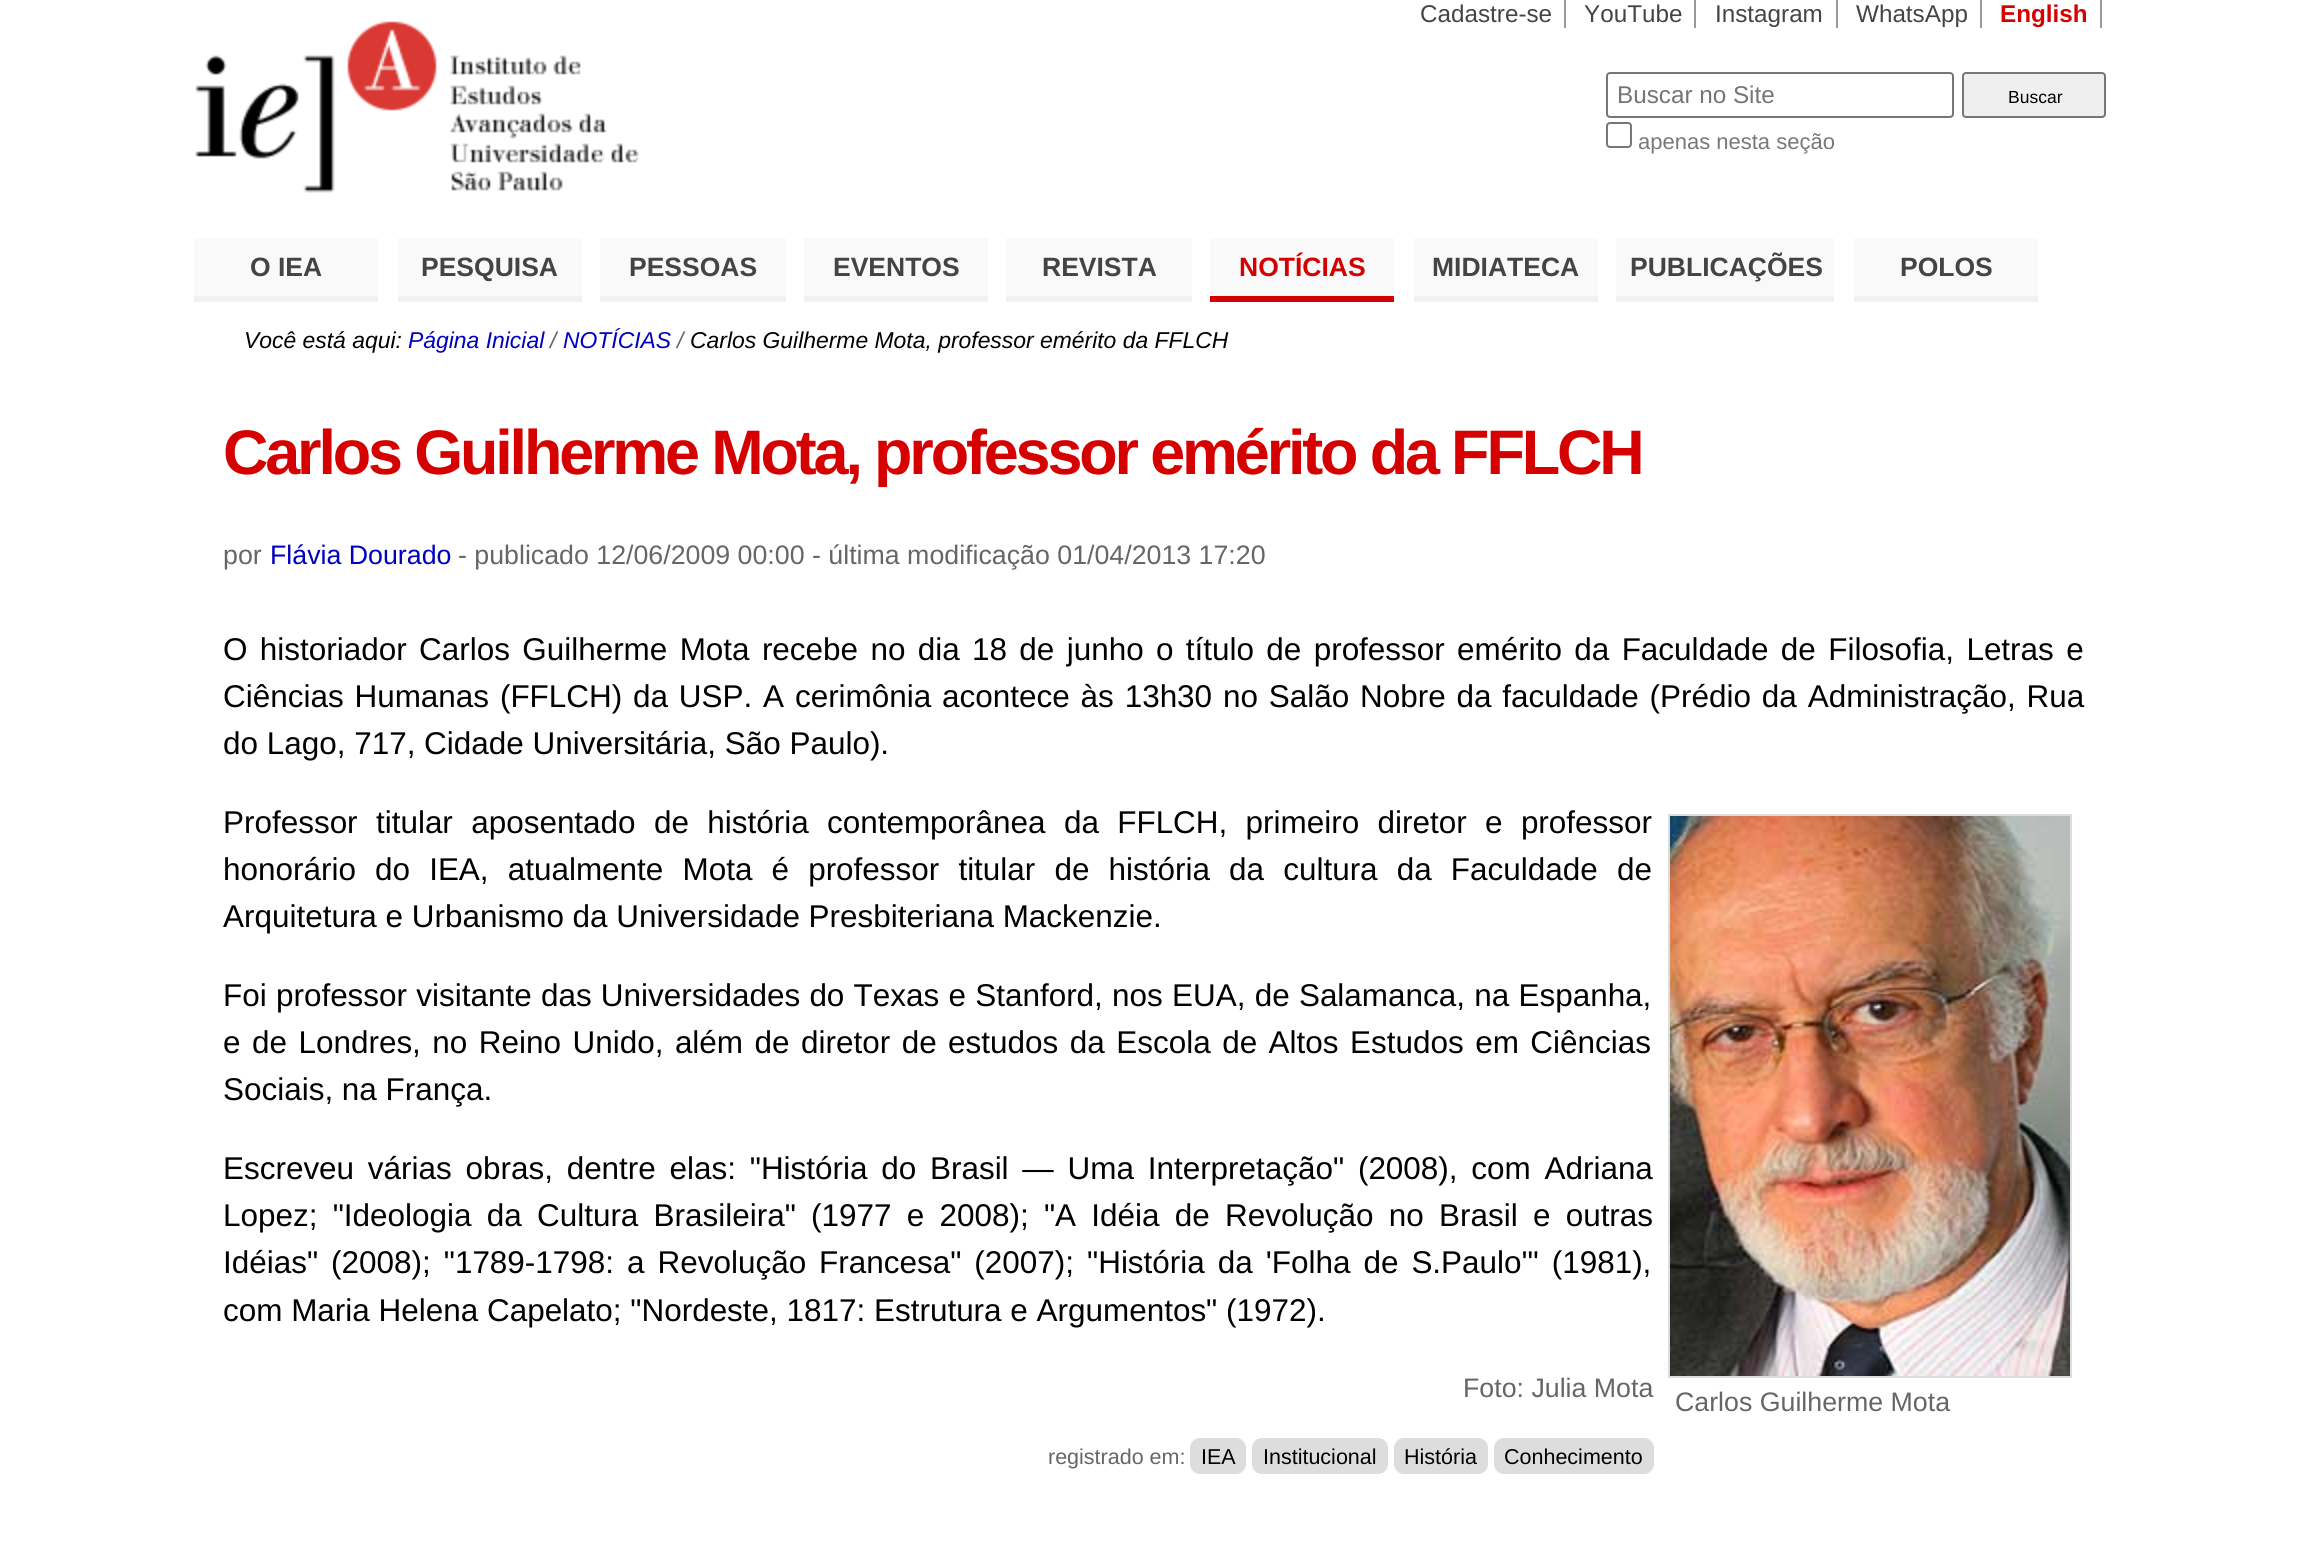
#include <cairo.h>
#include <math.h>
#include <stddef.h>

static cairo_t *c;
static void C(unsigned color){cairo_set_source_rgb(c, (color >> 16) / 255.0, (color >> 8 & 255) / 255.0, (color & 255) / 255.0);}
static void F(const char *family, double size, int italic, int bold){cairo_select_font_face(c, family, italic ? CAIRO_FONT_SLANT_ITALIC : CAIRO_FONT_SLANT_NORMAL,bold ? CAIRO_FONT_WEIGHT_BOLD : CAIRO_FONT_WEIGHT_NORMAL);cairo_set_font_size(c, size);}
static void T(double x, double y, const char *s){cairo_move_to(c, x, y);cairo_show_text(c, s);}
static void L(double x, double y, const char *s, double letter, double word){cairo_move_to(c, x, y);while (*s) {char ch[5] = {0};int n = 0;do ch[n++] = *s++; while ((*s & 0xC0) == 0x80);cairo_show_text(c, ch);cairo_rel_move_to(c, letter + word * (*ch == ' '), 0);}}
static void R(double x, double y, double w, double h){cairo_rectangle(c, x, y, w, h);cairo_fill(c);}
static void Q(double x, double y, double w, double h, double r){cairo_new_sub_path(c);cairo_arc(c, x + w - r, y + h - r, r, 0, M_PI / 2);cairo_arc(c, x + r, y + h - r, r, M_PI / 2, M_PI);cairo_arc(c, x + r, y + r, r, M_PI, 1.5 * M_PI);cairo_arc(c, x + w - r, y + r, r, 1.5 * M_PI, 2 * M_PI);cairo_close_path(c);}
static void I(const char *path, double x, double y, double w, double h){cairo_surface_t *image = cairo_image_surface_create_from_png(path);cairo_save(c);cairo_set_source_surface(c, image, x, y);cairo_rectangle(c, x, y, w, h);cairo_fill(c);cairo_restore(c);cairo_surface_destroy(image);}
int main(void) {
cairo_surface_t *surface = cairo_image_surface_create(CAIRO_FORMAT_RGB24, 2308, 1544);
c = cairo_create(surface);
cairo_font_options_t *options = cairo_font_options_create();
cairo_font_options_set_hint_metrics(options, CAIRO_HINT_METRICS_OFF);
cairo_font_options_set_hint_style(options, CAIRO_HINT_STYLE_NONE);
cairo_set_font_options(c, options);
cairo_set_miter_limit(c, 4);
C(0xffffff);
cairo_paint(c);
F("Liberation Sans",24.25,0,0);
C(0x444444);
T(1420,22,"Cadastre-se");
C(0x999999);
R(1564,0,2,28);
C(0x444444);
T(1584,22,"YouTube");
C(0x999999);
R(1694,0,2,28);
C(0x444444);
T(1715,22,"Instagram");
C(0x999999);
R(1836,0,2,28);
C(0x444444);
T(1856,22,"WhatsApp");
C(0x999999);
R(1980,0,2,28);
F("Liberation Sans",24.25,0,1);
C(0xd50000);
T(2000,22,"English");
C(0x999999);
R(2100,0,2,28);
I("1.png",195,21,444,172);
Q(1607,73,346,44,3);
C(0x767676);
cairo_stroke(c);
F("Liberation Sans",24.25,0,0);
C(0x757575);
T(1617,103,"Buscar no Site");
C(0xefefef);
Q(1963,73,142,44,3);
cairo_fill_preserve(c);
C(0x767676);
cairo_stroke(c);
F("Liberation Sans",17.5,0,0);
C(0x000000);
T(2008,103,"Buscar");
Q(1607,123,24,24,3);
C(0x767676);
cairo_stroke(c);
F("Liberation Sans",22,0,0);
C(0x76797c);
T(1638,149,"apenas nesta seção");
C(0xf9f9f9);
R(194,238,184,58);
C(0xf1f1f1);
R(194,296,184,6);
F("Liberation Sans",26.5,0,1);
C(0x444444);
T(250,276,"O IEA");
C(0xf9f9f9);
R(398,238,184,58);
C(0xf1f1f1);
R(398,296,184,6);
C(0x444444);
T(421,276,"PESQUISA");
C(0xf9f9f9);
R(600,238,186,58);
C(0xf1f1f1);
R(600,296,186,6);
C(0x444444);
T(629,276,"PESSOAS");
C(0xf9f9f9);
R(804,238,184,58);
C(0xf1f1f1);
R(804,296,184,6);
C(0x444444);
T(833,276,"EVENTOS");
C(0xf9f9f9);
R(1006,238,186,58);
C(0xf1f1f1);
R(1006,296,186,6);
C(0x444444);
T(1042,276,"REVISTA");
C(0xf9f9f9);
R(1210,238,184,58);
C(0xd50000);
R(1210,296,184,6);
T(1239,276,"NOTÍCIAS");
C(0xf9f9f9);
R(1414,238,184,58);
C(0xf1f1f1);
R(1414,296,184,6);
C(0x444444);
T(1432,276,"MIDIATECA");
C(0xf9f9f9);
R(1616,238,218,58);
C(0xf1f1f1);
R(1616,296,218,6);
C(0x444444);
T(1630,276,"PUBLICAÇÕES");
C(0xf9f9f9);
R(1854,238,184,58);
C(0xf1f1f1);
R(1854,296,184,6);
C(0x444444);
T(1900,276,"POLOS");
F("Liberation Sans",22.9,1,0);
C(0x000000);
T(244,348,"Você está aqui:");
C(0x0000c0);
T(408,348,"Página Inicial");
C(0x666666);
T(550,348,"/");
C(0x0000c0);
T(563,348,"NOTÍCIAS");
C(0x666666);
T(677,348,"/");
C(0x000000);
T(690,348,"Carlos Guilherme Mota, professor emérito da FFLCH");
F("Liberation Sans",62.9,0,1);
C(0xd50000);
L(223,474,"Carlos Guilherme Mota, professor emérito da FFLCH",-3.15,0);
F("Liberation Sans",26.75,0,0);
C(0x666666);
T(223,564,"por");
C(0x0000c0);
T(270,564,"Flávia Dourado");
C(0x666666);
T(458,564,"- publicado 12/06/2009 00:00 - última modificação 01/04/2013 17:20");
F("Liberation Sans",31.45,0,0);
C(0x000000);
L(223,660,"O historiador Carlos Guilherme Mota recebe no dia 18 de junho o título de professor emérito da Faculdade de Filosofia, Letras e",0,3.6);
L(223,707,"Ciências Humanas (FFLCH) da USP. A cerimônia acontece às 13h30 no Salão Nobre da faculdade (Prédio da Administração, Rua",0,2.1);
T(223,754,"do Lago, 717, Cidade Universitária, São Paulo).");
L(223,833,"Professor titular aposentado de história contemporânea da FFLCH, primeiro diretor e professor",0,9.6);
L(223,880,"honorário do IEA, atualmente Mota é professor titular de história da cultura da Faculdade de",0,10.4);
T(223,927,"Arquitetura e Urbanismo da Universidade Presbiteriana Mackenzie.");
L(223,1006,"Foi professor visitante das Universidades do Texas e Stanford, nos EUA, de Salamanca, na Espanha,",0,.5);
L(223,1053,"e de Londres, no Reino Unido, além de diretor de estudos da Escola de Altos Estudos em Ciências",0,2.75);
T(223,1100,"Sociais, na França.");
L(223,1179,"Escreveu várias obras, dentre elas: \"História do Brasil — Uma Interpretação\" (2008), com Adriana",0,5);
L(223,1226,"Lopez; \"Ideologia da Cultura Brasileira\" (1977 e 2008); \"A Idéia de Revolução no Brasil e outras",0,6.5);
L(223,1273,"Idéias\" (2008); \"1789-1798: a Revolução Francesa\" (2007); \"História da 'Folha de S.Paulo'\" (1981),",0,4.25);
T(223,1321,"com Maria Helena Capelato; \"Nordeste, 1817: Estrutura e Argumentos\" (1972).");
F("Liberation Sans",26.75,0,0);
C(0x666666);
T(1463,1397,"Foto: Julia Mota");
cairo_rectangle(c,1669,815,402,562);
C(0xdddddd);
cairo_stroke(c);
I("2.png",1670,816,400,560);
C(0x666666);
T(1675,1411,"Carlos Guilherme Mota");
F("Liberation Sans",21.5,0,0);
T(1048,1464,"registrado em:");
C(0xdddddd);
Q(1190,1438,56,36,10);
cairo_fill(c);
C(0x000000);
T(1201,1464,"IEA");
C(0xdddddd);
Q(1252,1438,136,36,10);
cairo_fill(c);
C(0x000000);
T(1263,1464,"Institucional");
C(0xdddddd);
Q(1394,1438,94,36,10);
cairo_fill(c);
C(0x000000);
T(1404,1464,"História");
C(0xdddddd);
Q(1494,1438,160,36,10);
cairo_fill(c);
C(0x000000);
T(1504,1464,"Conhecimento");
cairo_surface_write_to_png(surface, "o.png");
cairo_font_options_destroy(options);
cairo_destroy(c);
cairo_surface_destroy(surface);
return 0;
}
